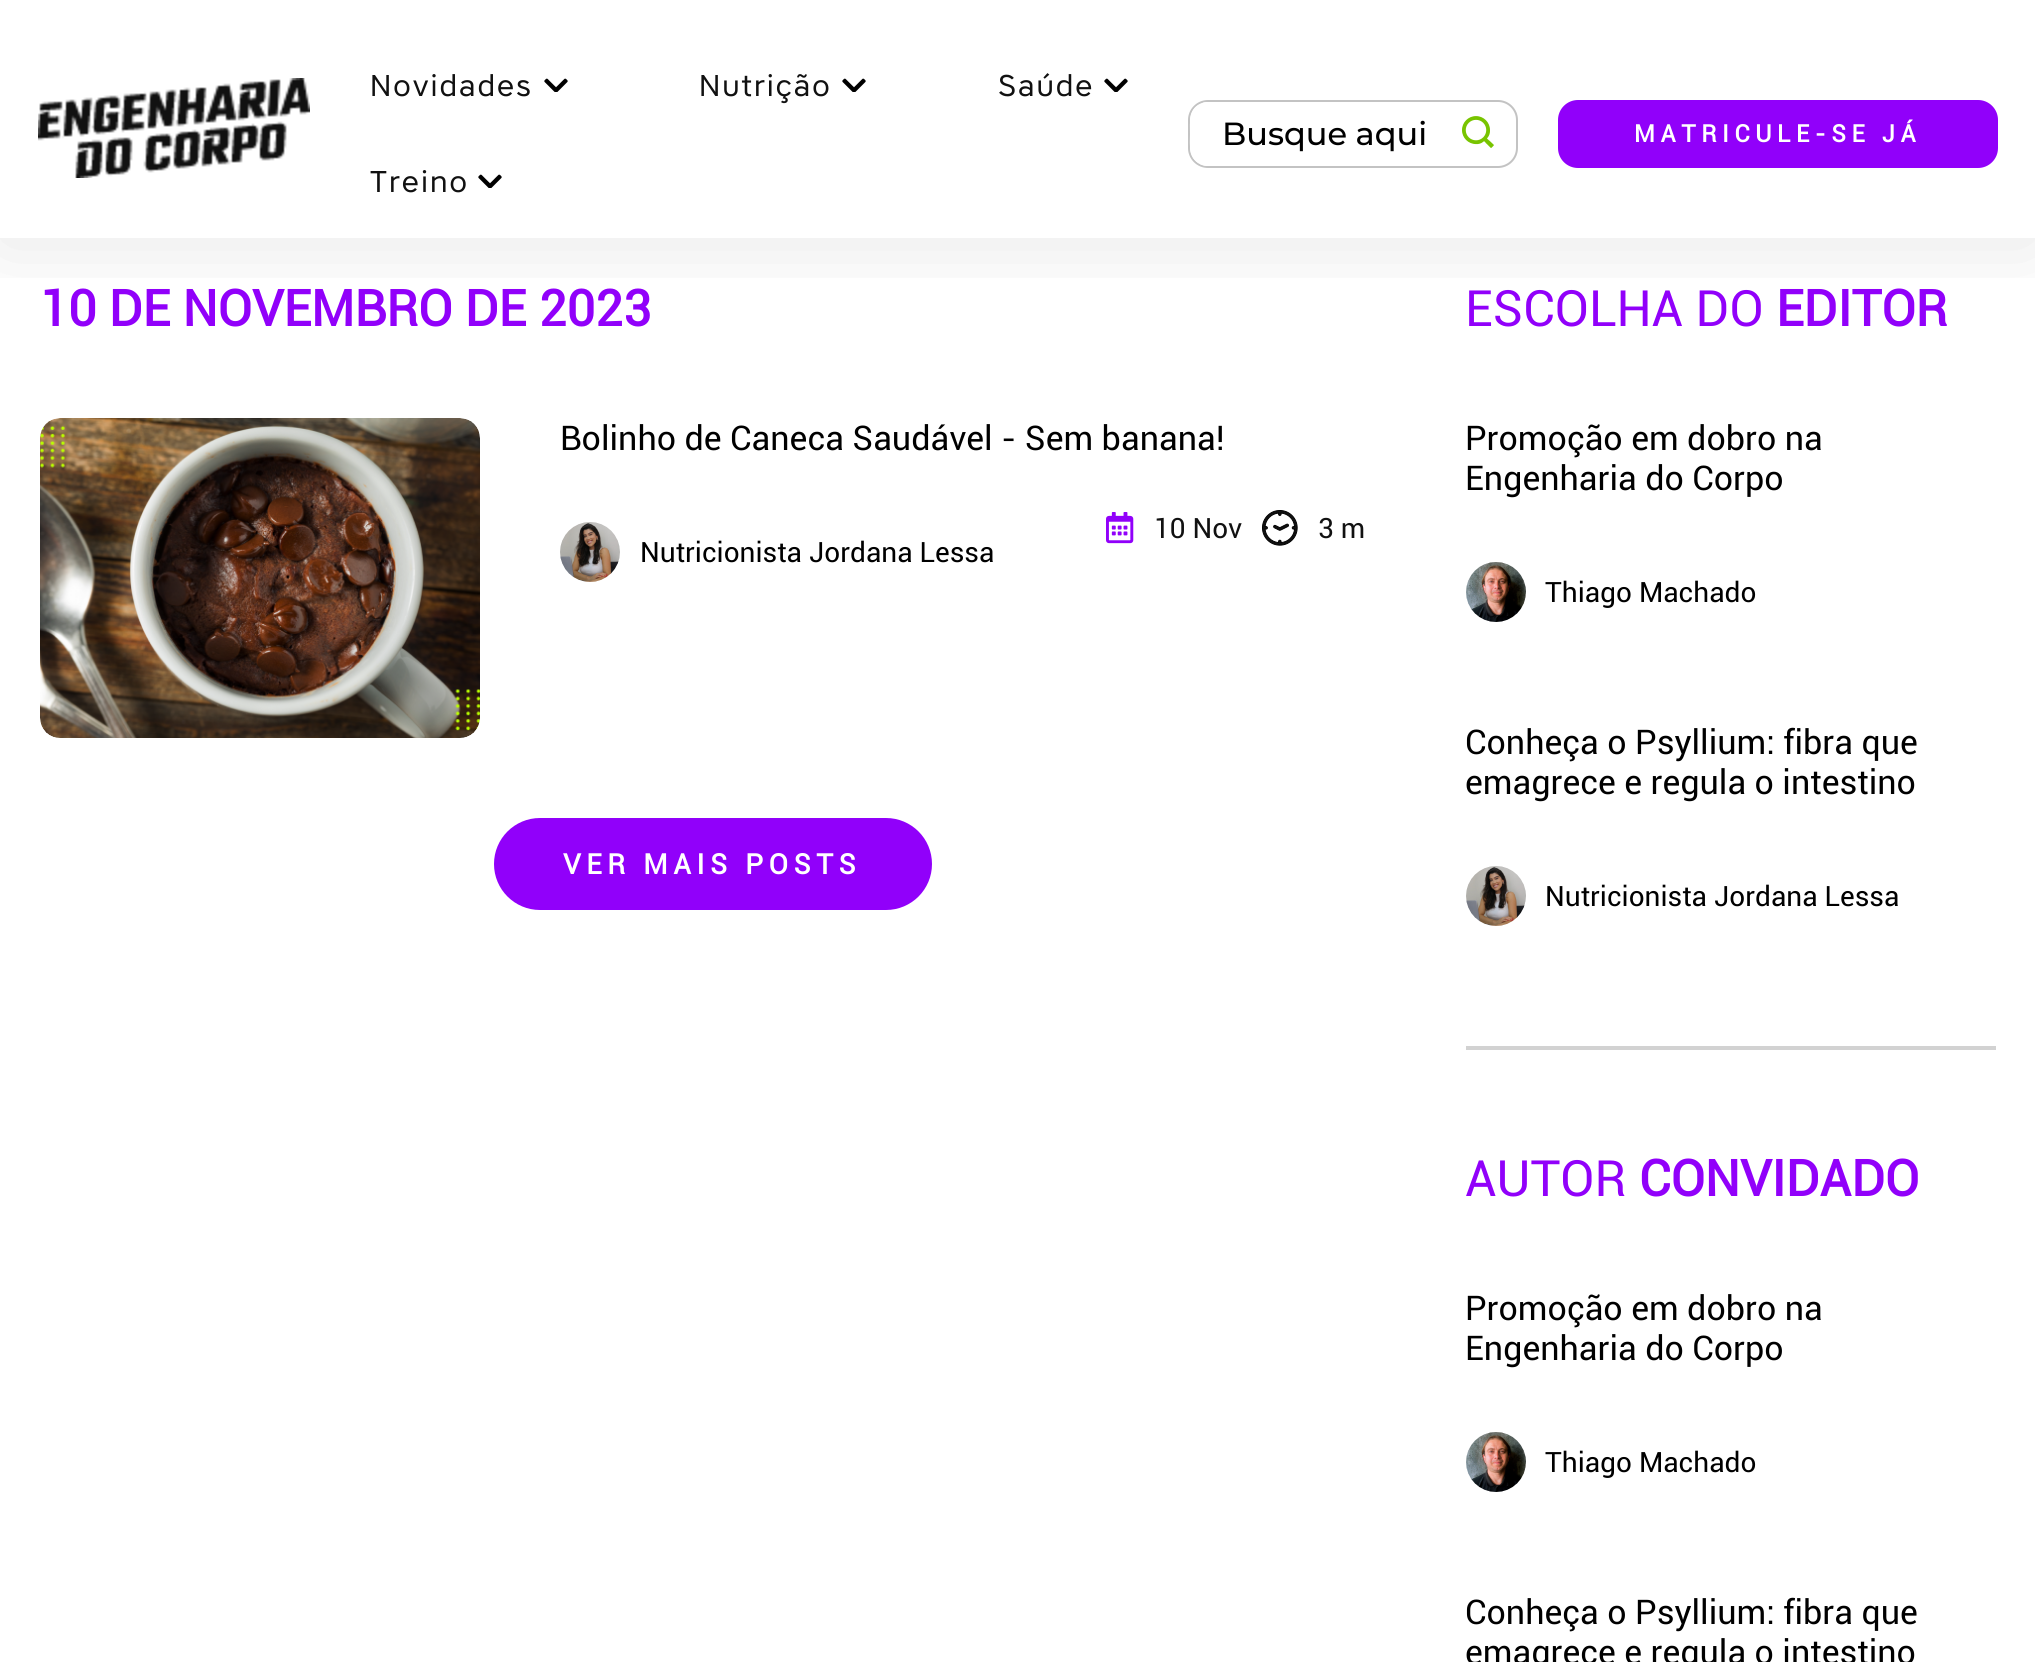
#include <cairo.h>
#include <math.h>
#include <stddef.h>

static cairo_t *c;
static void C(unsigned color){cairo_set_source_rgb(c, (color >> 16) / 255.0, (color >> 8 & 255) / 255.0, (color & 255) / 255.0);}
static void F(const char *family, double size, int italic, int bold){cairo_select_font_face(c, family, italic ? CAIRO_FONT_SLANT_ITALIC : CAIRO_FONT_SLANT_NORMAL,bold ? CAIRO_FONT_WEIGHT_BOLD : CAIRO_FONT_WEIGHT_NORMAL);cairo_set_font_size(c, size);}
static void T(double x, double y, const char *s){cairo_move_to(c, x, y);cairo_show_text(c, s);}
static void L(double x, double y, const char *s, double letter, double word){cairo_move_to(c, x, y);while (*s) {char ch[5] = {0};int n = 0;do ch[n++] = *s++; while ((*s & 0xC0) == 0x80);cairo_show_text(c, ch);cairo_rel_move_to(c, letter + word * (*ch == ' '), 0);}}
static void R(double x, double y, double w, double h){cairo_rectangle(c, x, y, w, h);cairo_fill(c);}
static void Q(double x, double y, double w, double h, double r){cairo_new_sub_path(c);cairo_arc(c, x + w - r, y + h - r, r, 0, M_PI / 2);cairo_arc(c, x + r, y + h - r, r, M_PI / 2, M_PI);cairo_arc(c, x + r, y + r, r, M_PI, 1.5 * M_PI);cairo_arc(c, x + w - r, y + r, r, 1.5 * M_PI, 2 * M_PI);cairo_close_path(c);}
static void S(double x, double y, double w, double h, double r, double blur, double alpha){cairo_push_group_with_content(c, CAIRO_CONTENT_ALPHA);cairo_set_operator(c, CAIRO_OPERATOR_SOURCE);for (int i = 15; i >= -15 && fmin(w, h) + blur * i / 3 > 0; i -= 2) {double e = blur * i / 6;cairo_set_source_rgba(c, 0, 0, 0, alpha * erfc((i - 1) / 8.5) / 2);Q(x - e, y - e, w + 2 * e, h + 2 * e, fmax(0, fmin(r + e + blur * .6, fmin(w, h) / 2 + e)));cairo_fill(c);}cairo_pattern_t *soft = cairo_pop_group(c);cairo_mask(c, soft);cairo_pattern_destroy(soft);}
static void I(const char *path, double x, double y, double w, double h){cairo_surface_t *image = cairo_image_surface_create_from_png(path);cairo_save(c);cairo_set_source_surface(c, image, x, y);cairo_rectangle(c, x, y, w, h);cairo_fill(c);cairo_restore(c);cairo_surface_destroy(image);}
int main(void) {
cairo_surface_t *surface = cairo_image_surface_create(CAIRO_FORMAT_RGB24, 2035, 1662);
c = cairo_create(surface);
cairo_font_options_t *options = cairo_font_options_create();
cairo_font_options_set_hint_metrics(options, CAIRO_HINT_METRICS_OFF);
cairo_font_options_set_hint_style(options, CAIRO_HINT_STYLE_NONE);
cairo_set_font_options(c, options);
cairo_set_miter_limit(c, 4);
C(0xffffff);
cairo_paint(c);
cairo_save(c);
cairo_rectangle(c,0,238,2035,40);
cairo_clip(c);
C(0x000000);
S(0,6,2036,238,0,40,.1);
cairo_restore(c);
I("1.png",38,78,272,100);
F("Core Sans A",30,0,0);
C(0x111111);
L(370,96,"Novidades",2,0);
I("2.png",544,78,24,14);
L(699,96,"Nutrição",2,0);
I("2.png",842,78,24,14);
L(998,96,"Saúde",2,0);
I("2.png",1104,78,24,14);
L(370,192,"Treino",2,0);
I("2.png",478,174,24,14);
Q(1189,101,328,66,19);
C(0xc3c3c3);
cairo_stroke(c);
cairo_save(c);
Q(1190,102,326,64,18);
cairo_clip(c);
C(0xffffff);
Q(1190,88,270,94,47);
cairo_fill(c);
cairo_restore(c);
F("Montserrat Medium",32,0,0);
C(0x000000);
T(1222,145,"Busque aqui");
C(0xffffff);
cairo_set_fill_rule(c,CAIRO_FILL_RULE_EVEN_ODD);
cairo_new_path(c);
cairo_move_to(c,1452,102);
cairo_curve_to(c,1467,120,1468,147,1454,166);
cairo_line_to(c,1448,166);
cairo_curve_to(c,1464,148,1464,119,1446,102);
cairo_close_path(c);
cairo_move_to(c,1203,103);
cairo_curve_to(c,1188,107,1190,122,1190,134);
cairo_curve_to(c,1190,145,1188,158,1200,164);
cairo_curve_to(c,1186,146,1187,120,1203,103);
cairo_close_path(c);
cairo_fill(c);
I("3.png",1462,116,32,32);
C(0x9100fa);
Q(1559,101,438,66,19);
cairo_fill_preserve(c);
cairo_stroke(c);
F("Roboto",24,0,1);
C(0xffffff);
L(1634,142,"MATRICULE-SE JÁ",5.6,0);
F("Roboto",50,0,1);
C(0x9100fa);
T(40,326,"10 DE NOVEMBRO DE 2023");
I("4.png",40,418,440,320);
F("Roboto",34,0,0);
C(0x000000);
T(560,450,"Bolinho de Caneca Saudável - Sem banana!");
I("5.png",1106,512,28,32);
F("Roboto",28,0,0);
C(0x111111);
T(1154,538,"10 Nov");
I("6.png",1262,510,36,36);
T(1318,538,"3 m");
I("7.png",560,522,60,60);
C(0x000000);
T(640,562,"Nutricionista Jordana Lessa");
C(0x9100fa);
Q(494,818,438,92,46);
cairo_fill(c);
F("Roboto",28,0,1);
C(0xffffff);
L(563,874,"VER MAIS POSTS",5.6,0);
F("Roboto",50,0,0);
C(0x9100fa);
T(1465,326,"ESCOLHA DO");
F("Roboto",50,0,1);
T(1776,326,"EDITOR");
C(0xd2d2d2);
R(1466,1046,530,4);
F("Roboto",34,0,0);
C(0x000000);
T(1465,450,"Promoção em dobro na");
T(1465,490,"Engenharia do Corpo");
I("8.png",1466,562,60,60);
F("Roboto",28,0,0);
T(1545,602,"Thiago Machado");
F("Roboto",34,0,0);
T(1465,754,"Conheça o Psyllium: fibra que");
T(1465,794,"emagrece e regula o intestino");
I("9.png",1466,866,60,60);
F("Roboto",28,0,0);
T(1545,906,"Nutricionista Jordana Lessa");
F("Roboto",50,0,0);
C(0x9100fa);
T(1465,1196,"AUTOR");
F("Roboto",50,0,1);
T(1639,1196,"CONVIDADO");
F("Roboto",34,0,0);
C(0x000000);
T(1465,1320,"Promoção em dobro na");
T(1465,1360,"Engenharia do Corpo");
I("8.png",1466,1432,60,60);
F("Roboto",28,0,0);
T(1545,1472,"Thiago Machado");
F("Roboto",34,0,0);
T(1465,1624,"Conheça o Psyllium: fibra que");
T(1465,1664,"emagrece e regula o intestino");
cairo_surface_write_to_png(surface, "o.png");
cairo_font_options_destroy(options);
cairo_destroy(c);
cairo_surface_destroy(surface);
return 0;
}
